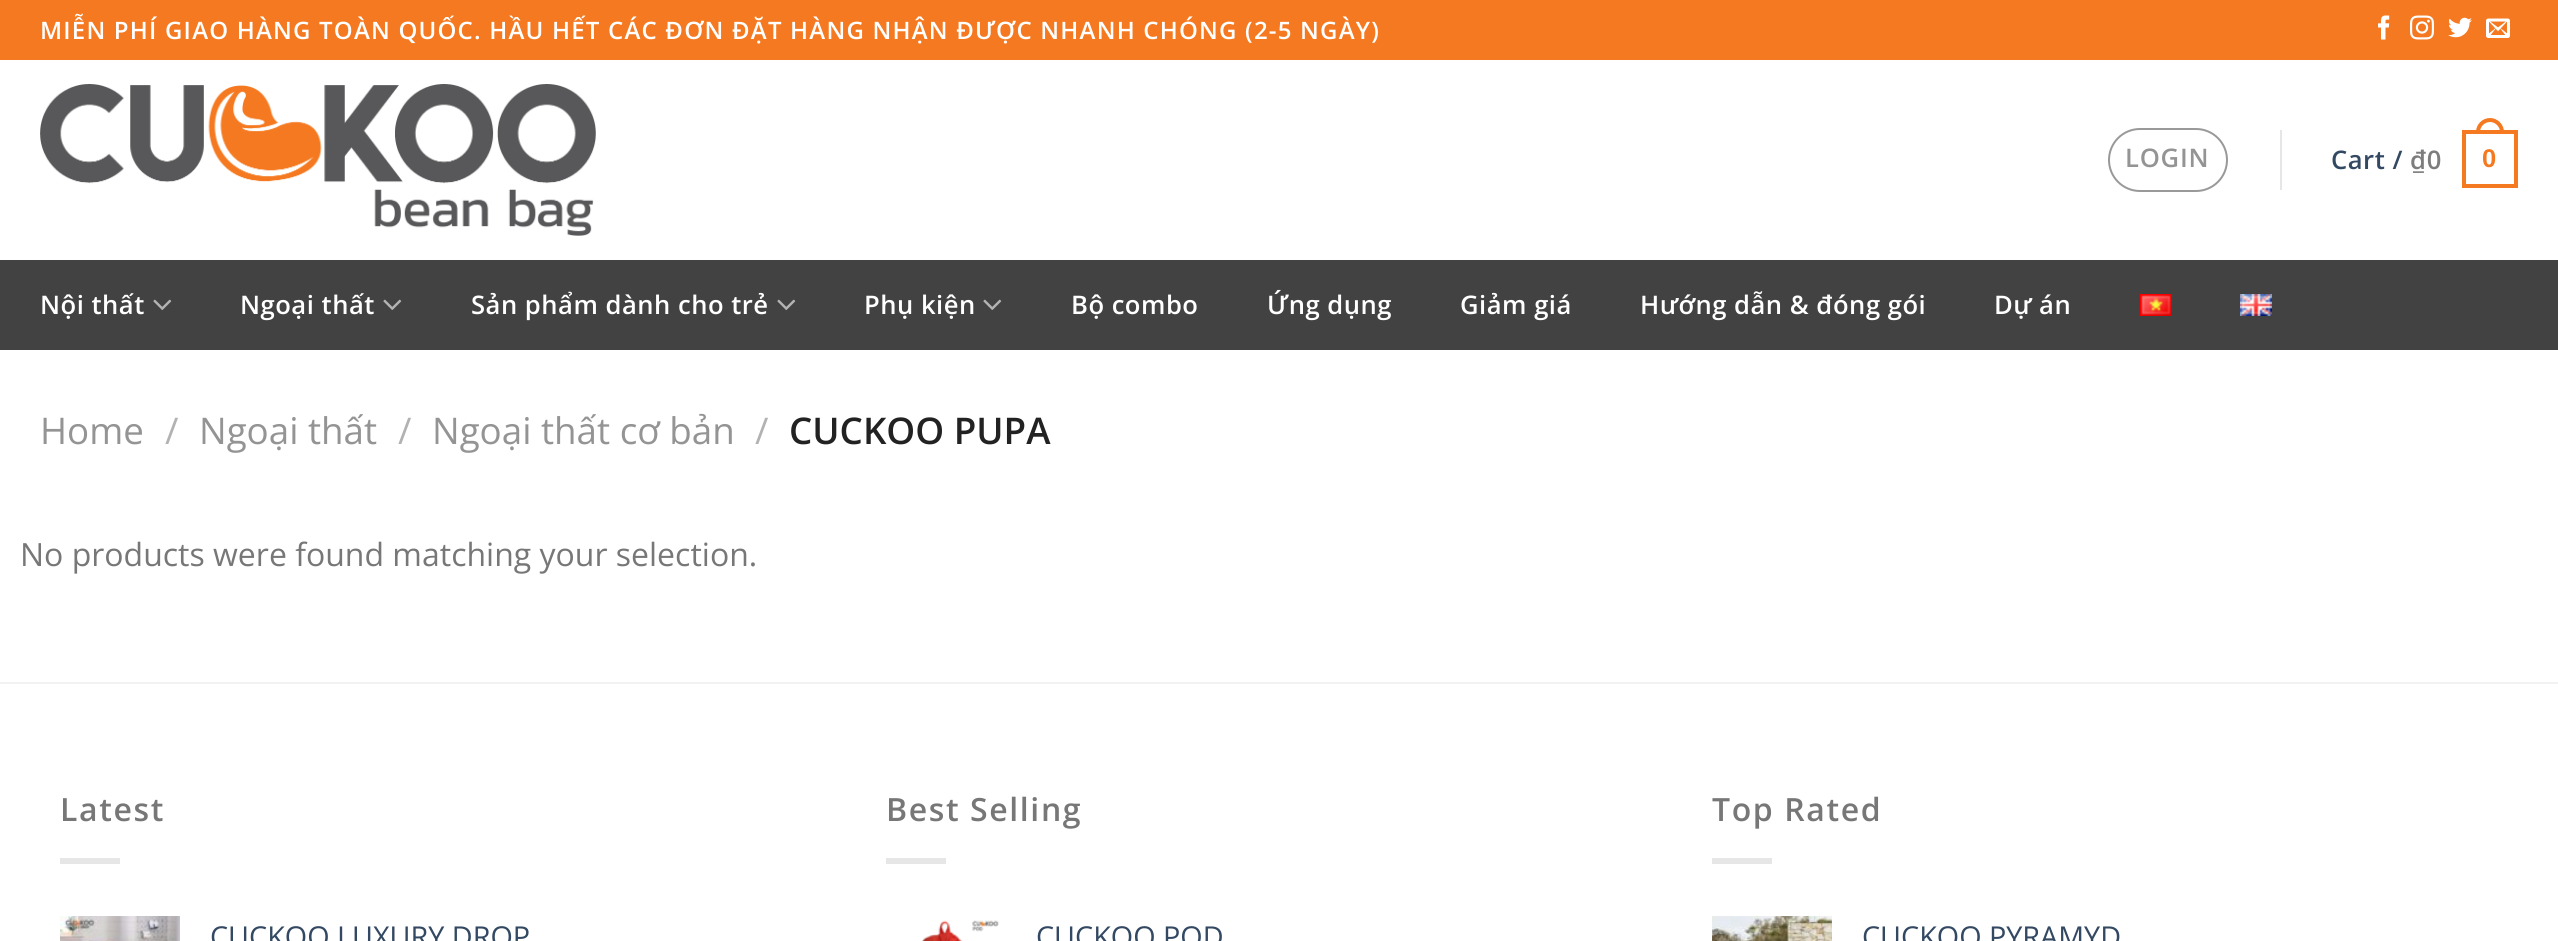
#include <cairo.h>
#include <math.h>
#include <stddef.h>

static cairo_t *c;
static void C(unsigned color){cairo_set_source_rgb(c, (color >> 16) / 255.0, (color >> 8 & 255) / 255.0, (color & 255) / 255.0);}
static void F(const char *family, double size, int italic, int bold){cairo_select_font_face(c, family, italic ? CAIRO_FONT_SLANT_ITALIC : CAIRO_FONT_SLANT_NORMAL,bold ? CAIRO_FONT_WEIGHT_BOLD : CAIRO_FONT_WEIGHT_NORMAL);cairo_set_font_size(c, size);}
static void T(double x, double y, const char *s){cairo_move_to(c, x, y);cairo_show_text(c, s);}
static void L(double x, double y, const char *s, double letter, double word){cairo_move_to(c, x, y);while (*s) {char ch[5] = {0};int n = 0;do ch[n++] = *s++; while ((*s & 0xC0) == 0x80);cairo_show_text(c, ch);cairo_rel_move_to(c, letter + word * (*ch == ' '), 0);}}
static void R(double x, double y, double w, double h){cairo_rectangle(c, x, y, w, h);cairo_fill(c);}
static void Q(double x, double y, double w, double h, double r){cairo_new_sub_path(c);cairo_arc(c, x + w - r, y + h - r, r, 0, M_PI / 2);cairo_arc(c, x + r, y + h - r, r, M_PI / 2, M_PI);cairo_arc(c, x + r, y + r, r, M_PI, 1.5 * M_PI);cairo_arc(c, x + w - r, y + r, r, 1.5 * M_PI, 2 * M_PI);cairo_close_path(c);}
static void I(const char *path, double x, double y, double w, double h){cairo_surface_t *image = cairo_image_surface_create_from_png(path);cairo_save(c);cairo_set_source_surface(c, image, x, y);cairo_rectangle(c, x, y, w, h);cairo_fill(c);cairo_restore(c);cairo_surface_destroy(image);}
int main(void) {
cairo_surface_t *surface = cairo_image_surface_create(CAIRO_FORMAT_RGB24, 2558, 941);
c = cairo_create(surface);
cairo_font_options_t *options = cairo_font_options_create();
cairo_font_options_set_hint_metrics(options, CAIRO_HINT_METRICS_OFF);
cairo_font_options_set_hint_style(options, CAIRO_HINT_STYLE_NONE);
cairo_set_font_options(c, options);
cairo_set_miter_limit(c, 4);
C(0xffffff);
cairo_paint(c);
C(0xf47920);
R(0,0,2558,60);
F("Open Sans SemiBold",24,0,0);
C(0xffffff);
L(40,39,"MIỄN PHÍ GIAO HÀNG TOÀN QUỐC. HẦU HẾT CÁC ĐƠN ĐẶT HÀNG NHẬN ĐƯỢC NHANH CHÓNG (2-5 NGÀY)",1.2,0);
I("1.png",2378,15,12,25);
I("2.png",2410,15,24,25);
I("3.png",2448,17,24,21);
I("4.png",2486,18,24,20);
I("5.png",40,84,556,152);
Q(2109,129,118,62,31);
C(0x999999);
cairo_stroke(c);
F("Open Sans SemiBold",25.6,0,0);
C(0x949494);
L(2125,167,"LOGIN",.75,0);
C(0xe6e6e6);
R(2280,130,2,60);
C(0x334862);
L(2331,169,"Cart /",.5,0);
C(0x7d7d7d);
L(2410,169,"₫0",.5,0);
cairo_rectangle(c,2464,132,52,54);
C(0xf47920);
cairo_set_line_width(c,4);
cairo_stroke(c);
cairo_new_path(c);
cairo_move_to(c,2490,120);
cairo_curve_to(c,2496.5,120,2502,125.5,2502,132);
cairo_line_to(c,2478,132);
cairo_curve_to(c,2478,125.5,2483.5,120,2490,120);
cairo_close_path(c);
cairo_stroke(c);
F("Liberation Sans",25.6,0,1);
L(2482,167,"0",.5,0);
C(0x424242);
R(0,260,2558,90);
F("Open Sans SemiBold",25.6,0,0);
C(0xffffff);
L(40,314,"Nội thất",.5,0);
I("6.png",153,299,19,11);
L(240,314,"Ngoại thất",.5,0);
I("6.png",383,299,19,11);
L(471,314,"Sản phẩm dành cho trẻ",.5,0);
I("6.png",777,299,19,11);
L(864,314,"Phụ kiện",.5,0);
I("6.png",983,299,19,11);
L(1071,314,"Bộ combo",.5,0);
L(1267,314,"Ứng dụng",.5,0);
L(1460,314,"Giảm giá",.5,0);
L(1640,314,"Hướng dẫn & đóng gói",.5,0);
L(1994,314,"Dự án",.5,0);
I("7.png",2140,294,32,22);
I("8.png",2240,294,32,22);
F("Open Sans",36.75,0,0);
C(0x949494);
T(40,444,"Home");
C(0xb2b2b2);
T(165,444,"/");
C(0x949494);
T(199,444,"Ngoại thất");
C(0xb2b2b2);
T(398,444,"/");
C(0x949494);
T(432,444,"Ngoại thất cơ bản");
C(0xb2b2b2);
T(755,444,"/");
F("Open Sans SemiBold",36.75,0,0);
C(0x222222);
T(789,444,"CUCKOO PUPA");
F("Open Sans",32,0,0);
C(0x777777);
T(20,566,"No products were found matching your selection.");
C(0xf2f2f2);
R(0,682,2558,2);
F("Open Sans SemiBold",32,0,0);
C(0x777777);
L(60,821,"Latest",1.6,0);
C(0xe6e6e6);
R(60,858,60,6);
I("9.png",60,916,120,25);
F("Open Sans",28.75,0,0);
C(0x334862);
T(210,947,"CUCKOO LUXURY DROP");
F("Open Sans SemiBold",32,0,0);
C(0x777777);
L(886,821,"Best Selling",1.6,0);
C(0xe6e6e6);
R(886,858,60,6);
I("10.png",922,920,77,21);
F("Open Sans",28.75,0,0);
C(0x334862);
T(1036,947,"CUCKOO POD");
F("Open Sans SemiBold",32,0,0);
C(0x777777);
L(1712,821,"Top Rated",1.6,0);
C(0xe6e6e6);
R(1712,858,60,6);
I("11.png",1712,916,120,25);
F("Open Sans",28.75,0,0);
C(0x334862);
T(1862,947,"CUCKOO PYRAMYD");
cairo_surface_write_to_png(surface, "o.png");
cairo_font_options_destroy(options);
cairo_destroy(c);
cairo_surface_destroy(surface);
return 0;
}
